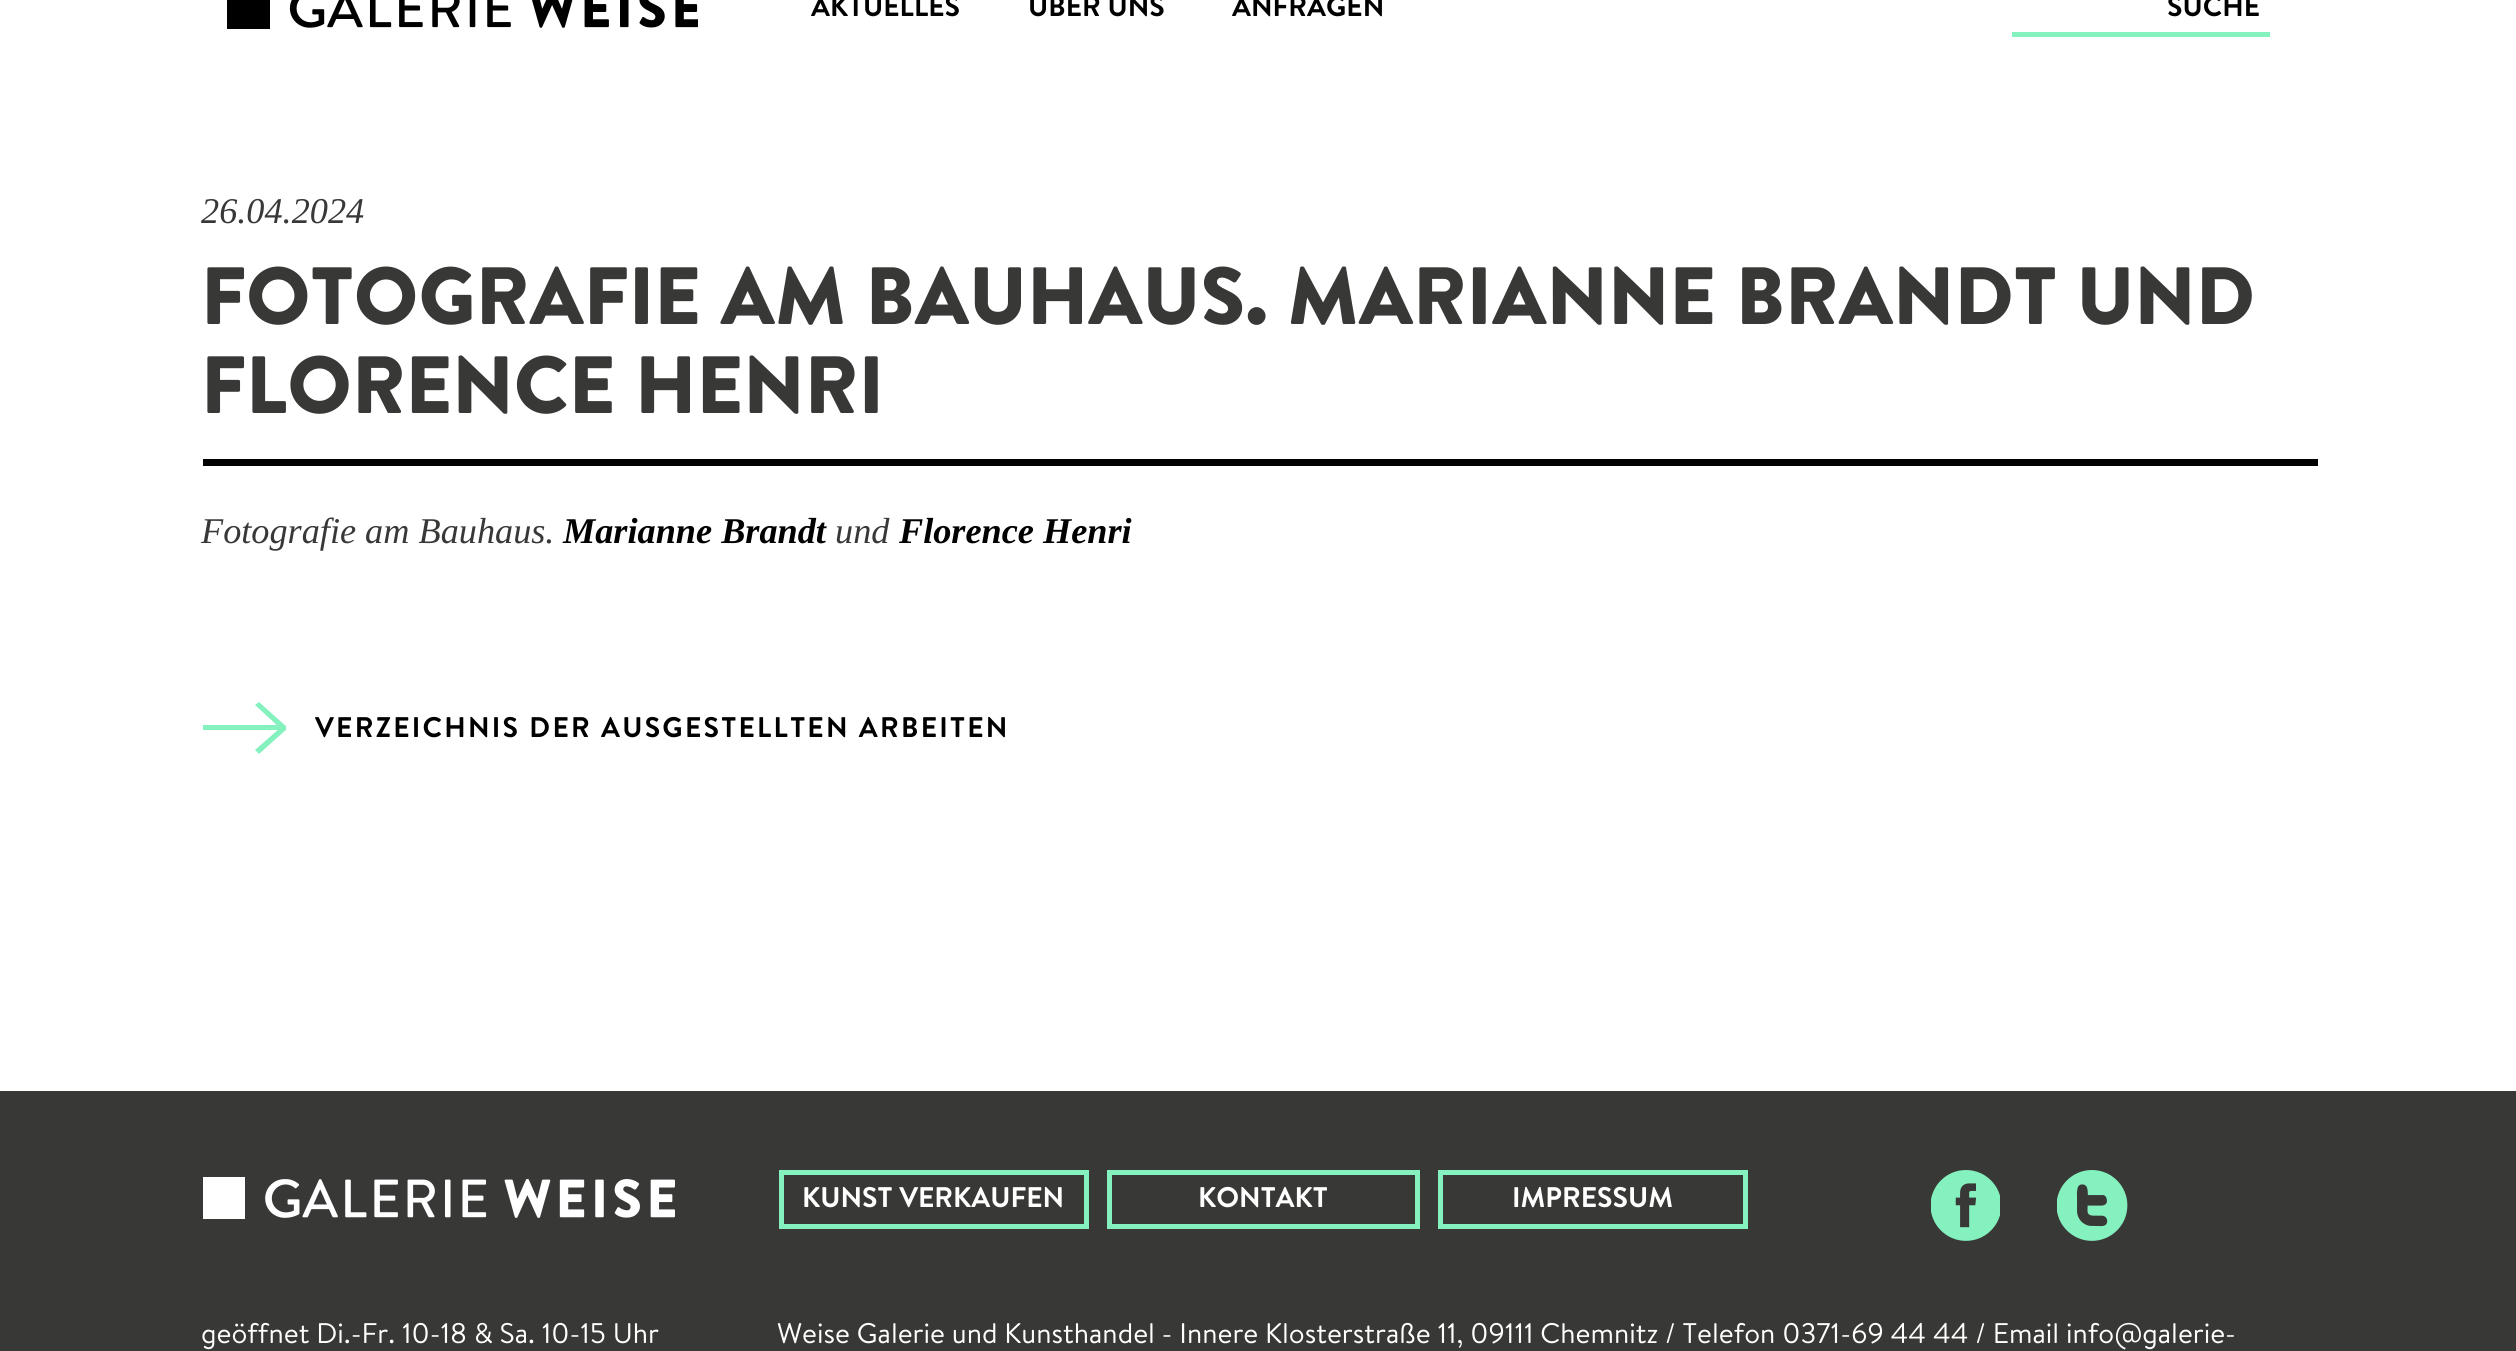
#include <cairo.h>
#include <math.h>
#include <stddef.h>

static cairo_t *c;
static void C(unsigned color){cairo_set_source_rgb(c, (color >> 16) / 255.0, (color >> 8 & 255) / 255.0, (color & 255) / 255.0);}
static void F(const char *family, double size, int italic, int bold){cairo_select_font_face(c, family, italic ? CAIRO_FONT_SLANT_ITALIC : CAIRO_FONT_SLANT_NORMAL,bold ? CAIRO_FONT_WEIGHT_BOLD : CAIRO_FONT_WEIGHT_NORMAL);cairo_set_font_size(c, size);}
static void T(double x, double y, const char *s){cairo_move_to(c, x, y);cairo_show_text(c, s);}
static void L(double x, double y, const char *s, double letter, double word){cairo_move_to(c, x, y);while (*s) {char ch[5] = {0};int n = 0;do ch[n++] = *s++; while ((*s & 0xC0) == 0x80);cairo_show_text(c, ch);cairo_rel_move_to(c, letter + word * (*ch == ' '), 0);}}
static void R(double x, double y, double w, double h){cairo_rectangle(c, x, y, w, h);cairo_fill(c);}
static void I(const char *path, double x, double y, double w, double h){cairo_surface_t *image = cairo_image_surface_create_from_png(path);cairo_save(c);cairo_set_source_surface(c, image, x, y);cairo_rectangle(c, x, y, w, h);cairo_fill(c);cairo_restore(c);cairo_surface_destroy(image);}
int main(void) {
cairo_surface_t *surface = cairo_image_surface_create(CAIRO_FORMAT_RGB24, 2516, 1351);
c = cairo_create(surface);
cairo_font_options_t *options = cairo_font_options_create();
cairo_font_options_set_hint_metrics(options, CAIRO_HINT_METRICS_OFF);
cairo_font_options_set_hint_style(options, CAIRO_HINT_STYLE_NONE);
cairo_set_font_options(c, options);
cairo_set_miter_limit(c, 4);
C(0xffffff);
cairo_paint(c);
I("1.png",227,0,471,29);
F("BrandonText",28.35,0,1);
C(0x000000);
T(811,16,"AKTUELLES");
T(1028,16,"ÜBER UNS");
T(1232,16,"ANFRAGEN");
C(0x85f1bf);
R(2012,32,258,5);
C(0x000000);
T(2167,16,"SUCHE");
F("Liberation Serif",36.25,1,0);
C(0x383836);
T(201,223,"26.04.2024");
C(0x000000);
R(203,459,2115,7);
F("BrandonText Black",81,0,0);
C(0x383836);
T(201,324,"FOTOGRAFIE AM BAUHAUS. MARIANNE BRANDT UND");
T(201,413,"FLORENCE HENRI");
F("Liberation Serif",36.25,1,0);
T(201,543,"Fotografie am Bauhaus.");
F("Liberation Serif",36.25,1,1);
C(0x000000);
T(563,543,"Marianne Brandt");
F("Liberation Serif",36.25,1,0);
C(0x383836);
T(835,543,"und");
F("Liberation Serif",36.25,1,1);
C(0x000000);
T(899,543,"Florence Henri");
C(0x85f1bf);
R(203,725,78,5);
cairo_save(c);
cairo_rectangle(c,203,695,83,66);
cairo_clip(c);
cairo_new_path(c);
cairo_move_to(c,259,754);
cairo_line_to(c,255,750);
cairo_line_to(c,280,728);
cairo_line_to(c,255,705);
cairo_line_to(c,259,702);
cairo_line_to(c,288,728);
cairo_close_path(c);
cairo_fill(c);
cairo_restore(c);
F("BrandonText",28.35,0,1);
C(0x000000);
L(315,737,"VERZEICHNIS DER AUSGESTELLTEN ARBEITEN",2.25,0);
C(0x383836);
R(0,1091,2516,260);
I("2.png",203,1177,472,42);
cairo_rectangle(c,781.5,1172.5,305,54);
C(0x85f1bf);
cairo_set_line_width(c,5);
cairo_stroke(c);
C(0xffffff);
T(802,1207,"KUNST VERKAUFEN");
cairo_rectangle(c,1109.5,1172.5,308,54);
C(0x85f1bf);
cairo_stroke(c);
C(0xffffff);
T(1198,1207,"KONTAKT");
cairo_rectangle(c,1440.5,1172.5,305,54);
C(0x85f1bf);
cairo_stroke(c);
C(0xffffff);
T(1512,1207,"IMPRESSUM");
I("3.png",1931,1170,69,71);
I("4.png",2057,1170,71,71);
F("BrandonText",28.35,0,0);
T(201,1343,"geöffnet Di.-Fr. 10-18 & Sa. 10-15 Uhr");
T(777,1343,"Weise Galerie und Kunsthandel - Innere Klosterstraße 11, 09111 Chemnitz / Telefon 0371-69 44 44 / Email info@galerie-");
cairo_surface_write_to_png(surface, "o.png");
cairo_font_options_destroy(options);
cairo_destroy(c);
cairo_surface_destroy(surface);
return 0;
}
